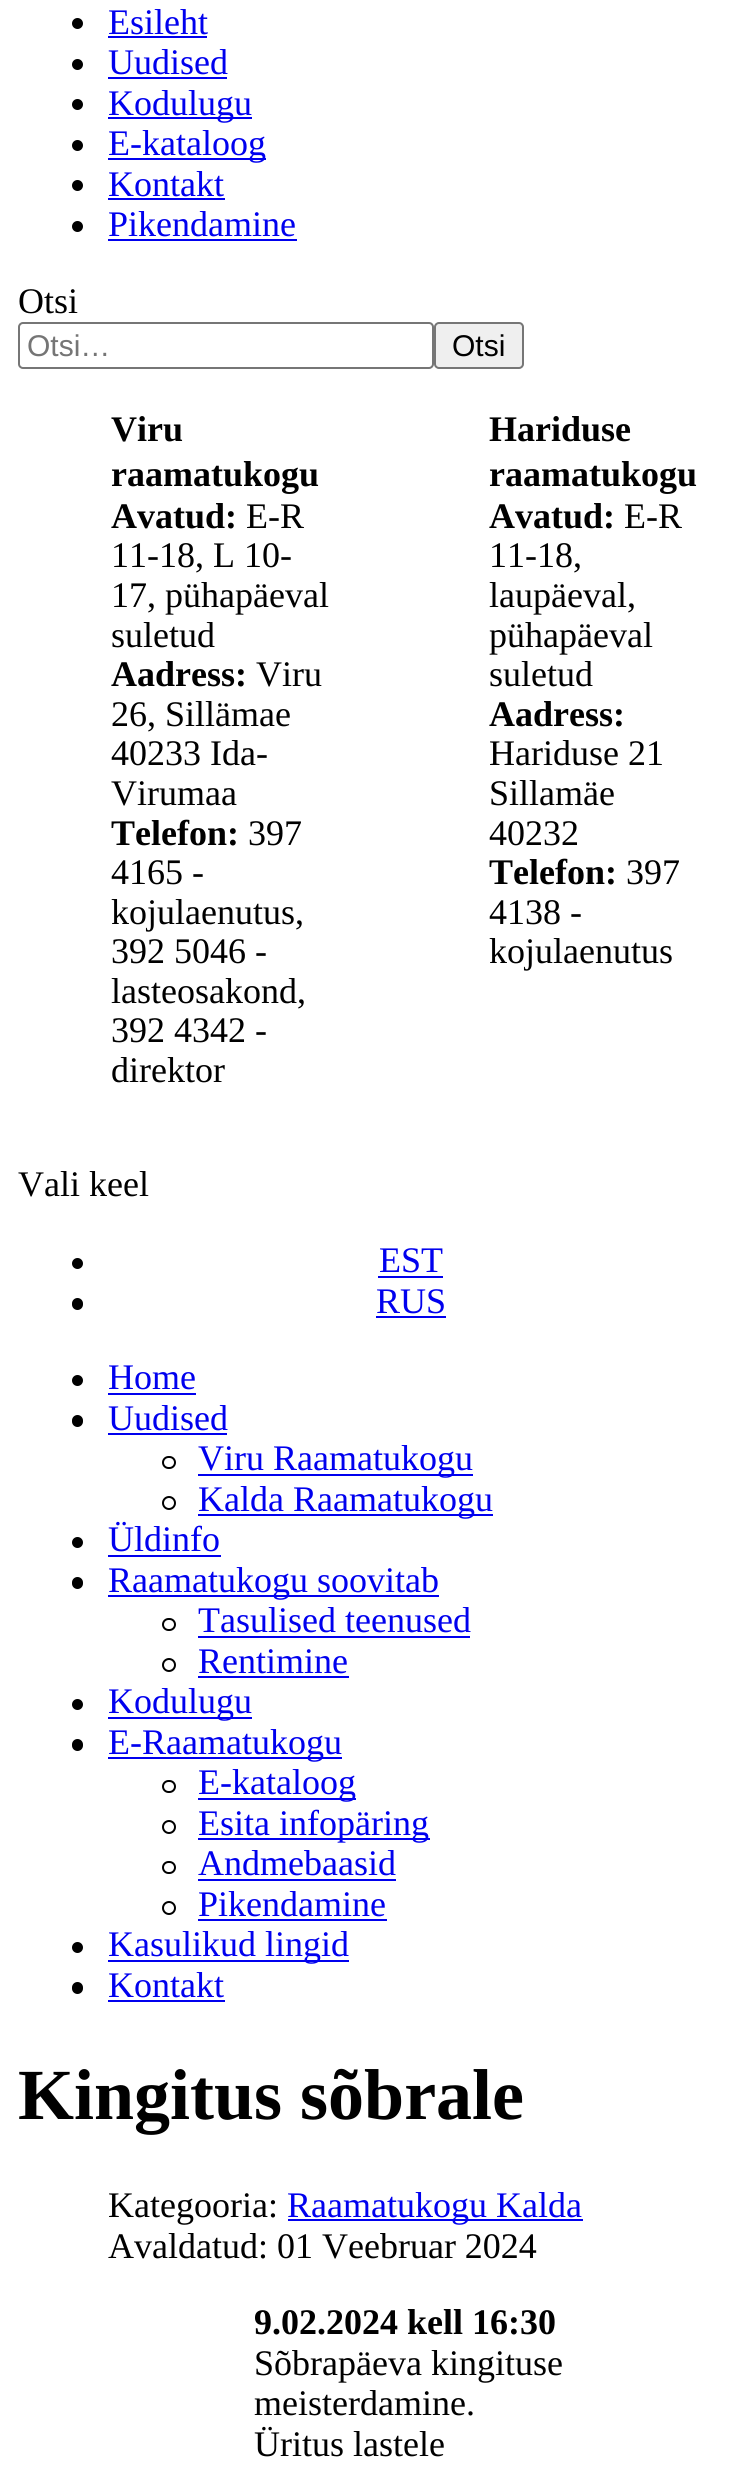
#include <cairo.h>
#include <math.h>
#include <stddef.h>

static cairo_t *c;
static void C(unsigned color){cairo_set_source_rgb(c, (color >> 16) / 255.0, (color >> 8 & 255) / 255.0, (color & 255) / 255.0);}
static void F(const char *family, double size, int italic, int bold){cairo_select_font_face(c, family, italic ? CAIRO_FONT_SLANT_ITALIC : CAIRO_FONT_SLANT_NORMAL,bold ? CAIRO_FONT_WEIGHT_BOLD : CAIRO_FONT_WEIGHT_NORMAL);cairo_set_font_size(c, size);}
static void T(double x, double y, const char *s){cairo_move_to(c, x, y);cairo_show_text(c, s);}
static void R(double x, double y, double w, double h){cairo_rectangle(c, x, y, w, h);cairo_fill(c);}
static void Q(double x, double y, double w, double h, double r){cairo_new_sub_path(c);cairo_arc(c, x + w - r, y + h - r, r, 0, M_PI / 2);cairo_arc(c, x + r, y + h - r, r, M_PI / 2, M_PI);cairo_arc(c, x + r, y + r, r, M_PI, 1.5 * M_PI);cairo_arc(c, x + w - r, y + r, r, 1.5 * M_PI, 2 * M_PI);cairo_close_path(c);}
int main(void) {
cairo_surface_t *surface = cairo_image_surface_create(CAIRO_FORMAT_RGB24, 731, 2472);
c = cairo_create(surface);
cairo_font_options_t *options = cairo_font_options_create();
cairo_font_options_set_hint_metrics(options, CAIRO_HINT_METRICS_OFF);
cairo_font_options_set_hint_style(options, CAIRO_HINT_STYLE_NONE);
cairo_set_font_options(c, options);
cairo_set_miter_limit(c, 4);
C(0xffffff);
cairo_paint(c);
C(0x000000);
cairo_arc(c,77.5,23.5,5.5,0,2 * M_PI);
cairo_fill(c);
F("Liberation Serif",36,0,0);
C(0x0000ee);
T(108,34,"Esileht");
R(108,36,99,2);
C(0x000000);
cairo_new_path(c);
cairo_arc(c,77.5,64.5,5.5,0,2 * M_PI);
cairo_fill(c);
C(0x0000ee);
T(108,74,"Uudised");
R(108,77,119,2);
C(0x000000);
cairo_new_path(c);
cairo_arc(c,77.5,104.5,5.5,0,2 * M_PI);
cairo_fill(c);
C(0x0000ee);
R(108,117,144,2);
T(108,115,"Kodulugu");
C(0x000000);
cairo_new_path(c);
cairo_arc(c,77.5,145.5,5.5,0,2 * M_PI);
cairo_fill(c);
C(0x0000ee);
R(108,158,158,2);
T(108,155,"Е-kataloog");
C(0x000000);
cairo_new_path(c);
cairo_arc(c,77.5,185.5,5.5,0,2 * M_PI);
cairo_fill(c);
C(0x0000ee);
T(108,196,"Kontakt");
R(108,198,117,2);
C(0x000000);
cairo_new_path(c);
cairo_arc(c,77.5,226.5,5.5,0,2 * M_PI);
cairo_fill(c);
C(0x0000ee);
T(108,236,"Pikendamine");
R(108,239,189,2);
C(0x000000);
T(18,313,"Otsi");
Q(19,323,414,45,4);
C(0x767676);
cairo_stroke(c);
F("Liberation Sans",30,0,0);
C(0x757575);
T(27,356,"Otsi…");
C(0xefefef);
Q(435,323,88,45,4);
cairo_fill_preserve(c);
C(0x767676);
cairo_stroke(c);
C(0x000000);
T(452,356,"Otsi");
F("Liberation Serif",36,0,1);
T(111,441,"Viru");
T(111,486,"raamatukogu");
T(111,528,"Avatud:");
F("Liberation Serif",36,0,0);
T(246,528,"E-R");
T(111,567,"11-18, L 10-");
T(111,607,"17, pühapäeval");
T(111,647,"suletud");
F("Liberation Serif",36,0,1);
T(111,686,"Aadress:");
F("Liberation Serif",36,0,0);
T(256,686,"Viru");
T(111,726,"26, Sillämae");
T(111,765,"40233 Ida-");
T(111,805,"Virumaa");
F("Liberation Serif",36,0,1);
T(111,845,"Telefon:");
F("Liberation Serif",36,0,0);
T(248,845,"397");
T(111,884,"4165 -");
T(111,924,"kojulaenutus,");
T(111,963,"392 5046 -");
T(111,1003,"lasteosakond,");
T(111,1042,"392 4342 -");
T(111,1082,"direktor");
F("Liberation Serif",36,0,1);
T(489,441,"Hariduse");
T(489,486,"raamatukogu");
T(489,528,"Avatud:");
F("Liberation Serif",36,0,0);
T(624,528,"E-R");
T(489,567,"11-18,");
T(489,607,"laupäeval,");
T(489,647,"pühapäeval");
T(489,686,"suletud");
F("Liberation Serif",36,0,1);
T(489,726,"Aadress:");
F("Liberation Serif",36,0,0);
T(489,765,"Hariduse 21");
T(489,805,"Sillamäe");
T(489,845,"40232");
F("Liberation Serif",36,0,1);
T(489,884,"Telefon:");
F("Liberation Serif",36,0,0);
T(626,884,"397");
T(489,924,"4138 -");
T(489,963,"kojulaenutus");
T(18,1196,"Vali keel");
cairo_new_path(c);
cairo_arc(c,77.5,1263.5,5.5,0,2 * M_PI);
cairo_fill(c);
C(0x0000ee);
T(379,1272,"EST");
R(378,1276,65,2);
C(0x000000);
Q(72,1298,11,12,5.5);
cairo_fill(c);
C(0x0000ee);
T(376,1313,"RUS");
R(376,1316,70,2);
C(0x000000);
cairo_new_path(c);
cairo_arc(c,77.5,1380.5,5.5,0,2 * M_PI);
cairo_fill(c);
C(0x0000ee);
T(108,1389,"Home");
R(108,1393,88,2);
C(0x000000);
Q(72,1415,11,12,5.5);
cairo_fill(c);
C(0x0000ee);
T(108,1430,"Uudised");
R(108,1433,119,2);
Q(163,1457,12,11,5.5);
C(0x000000);
cairo_stroke(c);
C(0x0000ee);
R(198,1474,275,2);
T(198,1470,"Viru Raamatukogu");
cairo_new_path(c);
cairo_arc(c,169,1503,6,0,2 * M_PI);
C(0x000000);
cairo_stroke(c);
C(0x0000ee);
R(198,1514,295,2);
T(198,1511,"Kalda Raamatukogu");
C(0x000000);
cairo_new_path(c);
cairo_arc(c,77.5,1542.5,5.5,0,2 * M_PI);
cairo_fill(c);
C(0x0000ee);
T(108,1551,"Üldinfo");
R(108,1555,113,2);
C(0x000000);
Q(72,1577,11,12,5.5);
cairo_fill(c);
C(0x0000ee);
R(108,1595,331,2);
T(108,1592,"Raamatukogu soovitab");
Q(163,1619,12,11,5.5);
C(0x000000);
cairo_stroke(c);
C(0x0000ee);
T(198,1632,"Tasulised teenused");
R(198,1636,272,2);
cairo_new_path(c);
cairo_arc(c,169,1665,6,0,2 * M_PI);
C(0x000000);
cairo_stroke(c);
C(0x0000ee);
T(198,1673,"Rentimine");
R(198,1676,151,2);
C(0x000000);
cairo_new_path(c);
cairo_arc(c,77.5,1704.5,5.5,0,2 * M_PI);
cairo_fill(c);
C(0x0000ee);
R(108,1717,144,2);
T(108,1713,"Kodulugu");
C(0x000000);
Q(72,1739,11,12,5.5);
cairo_fill(c);
C(0x0000ee);
R(108,1757,234,2);
T(108,1754,"E-Raamatukogu");
Q(163,1781,12,11,5.5);
C(0x000000);
cairo_stroke(c);
C(0x0000ee);
R(198,1798,158,2);
T(198,1794,"Е-kataloog");
cairo_new_path(c);
cairo_arc(c,169,1827,6,0,2 * M_PI);
C(0x000000);
cairo_stroke(c);
C(0x0000ee);
R(198,1838,232,2);
T(198,1835,"Esita infopäring");
Q(163,1862,12,11,5.5);
C(0x000000);
cairo_stroke(c);
C(0x0000ee);
T(198,1875,"Andmebaasid");
R(198,1879,198,2);
cairo_new_path(c);
cairo_arc(c,169,1908,6,0,2 * M_PI);
C(0x000000);
cairo_stroke(c);
C(0x0000ee);
T(198,1916,"Pikendamine");
R(198,1919,189,2);
C(0x000000);
cairo_new_path(c);
cairo_arc(c,77.5,1947.5,5.5,0,2 * M_PI);
cairo_fill(c);
C(0x0000ee);
R(108,1960,241,2);
T(108,1956,"Kasulikud lingid");
C(0x000000);
Q(72,1982,11,12,5.5);
cairo_fill(c);
C(0x0000ee);
T(108,1997,"Kontakt");
R(108,2000,117,2);
F("Liberation Serif",72,0,1);
C(0x000000);
T(18,2119,"Kingitus sõbrale");
F("Liberation Serif",36,0,0);
T(108,2217,"Kategooria:");
C(0x0000ee);
R(288,2219,295,2);
T(287,2217,"Raamatukogu Kalda");
C(0x000000);
T(108,2258,"Avaldatud: 01 Veebruar 2024");
F("Liberation Serif",36,0,1);
T(254,2334,"9.02.2024 kell 16:30");
F("Liberation Serif",36,0,0);
T(254,2375,"Sõbrapäeva kingituse");
T(254,2415,"meisterdamine.");
T(254,2456,"Üritus lastele");
cairo_surface_write_to_png(surface, "o.png");
cairo_font_options_destroy(options);
cairo_destroy(c);
cairo_surface_destroy(surface);
return 0;
}
